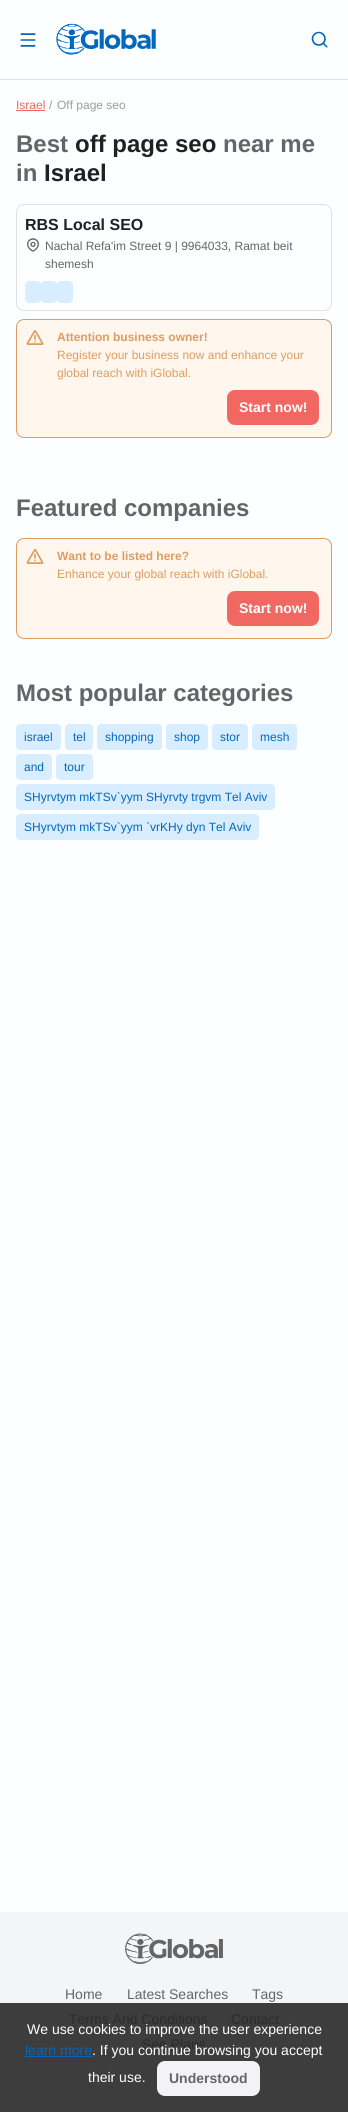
#include <cairo.h>
#include <math.h>
#include <stddef.h>

static cairo_t *c;
static void C(unsigned color){cairo_set_source_rgb(c, (color >> 16) / 255.0, (color >> 8 & 255) / 255.0, (color & 255) / 255.0);}
static void F(const char *family, double size, int italic, int bold){cairo_select_font_face(c, family, italic ? CAIRO_FONT_SLANT_ITALIC : CAIRO_FONT_SLANT_NORMAL,bold ? CAIRO_FONT_WEIGHT_BOLD : CAIRO_FONT_WEIGHT_NORMAL);cairo_set_font_size(c, size);}
static void T(double x, double y, const char *s){cairo_move_to(c, x, y);cairo_show_text(c, s);}
static void R(double x, double y, double w, double h){cairo_rectangle(c, x, y, w, h);cairo_fill(c);}
static void Q(double x, double y, double w, double h, double r){cairo_new_sub_path(c);cairo_arc(c, x + w - r, y + h - r, r, 0, M_PI / 2);cairo_arc(c, x + r, y + h - r, r, M_PI / 2, M_PI);cairo_arc(c, x + r, y + r, r, M_PI, 1.5 * M_PI);cairo_arc(c, x + w - r, y + r, r, 1.5 * M_PI, 2 * M_PI);cairo_close_path(c);}
static void I(const char *path, double x, double y, double w, double h){cairo_surface_t *image = cairo_image_surface_create_from_png(path);cairo_save(c);cairo_set_source_surface(c, image, x, y);cairo_rectangle(c, x, y, w, h);cairo_fill(c);cairo_restore(c);cairo_surface_destroy(image);}
int main(void) {
cairo_surface_t *surface = cairo_image_surface_create(CAIRO_FORMAT_RGB24, 348, 2112);
c = cairo_create(surface);
cairo_font_options_t *options = cairo_font_options_create();
cairo_font_options_set_hint_metrics(options, CAIRO_HINT_METRICS_OFF);
cairo_font_options_set_hint_style(options, CAIRO_HINT_STYLE_NONE);
cairo_set_font_options(c, options);
cairo_set_miter_limit(c, 4);
C(0xfcfeff);
cairo_paint(c);
C(0xe1e1e5);
R(0,79,348,1);
I("1.png",20,33,16,14);
I("2.png",56,23,100,32);
I("3.png",311,31,17,17);
F("Liberation Sans",12,0,0);
C(0xf16862);
T(16,109,"Israel");
R(16,110,29,1);
C(0x9d9c9e);
T(49,109,"/");
T(57,109,"Off page seo");
F("Liberation Sans",24,0,1);
C(0x656566);
T(16,152,"Best");
C(0x212121);
T(75,152,"off page seo");
C(0x656566);
T(223,152,"near me");
T(16,181,"in");
C(0x212121);
T(44,181,"Israel");
Q(16.5,204.5,315,106,7.5);
C(0xe1e1e5);
cairo_set_line_width(c,1);
cairo_stroke(c);
F("Liberation Sans",16,0,1);
C(0x212121);
T(25,230,"RBS Local SEO");
I("4.png",27,238,12,14);
F("Liberation Sans",12,0,0);
C(0x656566);
T(45,250,"Nachal Refa'im Street 9 | 9964033, Ramat beit");
T(45,268,"shemesh");
C(0xd8edff);
Q(25,281,16,22,4);
cairo_fill(c);
Q(41,281,16,22,4);
cairo_fill(c);
Q(57,281,16,22,4);
cairo_fill(c);
C(0xfff6ed);
Q(16.5,319.5,315,118,7.5);
cairo_fill_preserve(c);
C(0xdd9d62);
cairo_stroke(c);
I("5.png",26,330,18,15);
F("Liberation Sans",12,0,1);
T(57,341,"Attention business owner!");
F("Liberation Sans",12,0,0);
T(57,359,"Register your business now and enhance your");
T(57,377,"global reach with iGlobal.");
C(0xf16862);
Q(227,390,92,35,8);
cairo_fill(c);
F("Liberation Sans",14,0,1);
C(0xffffff);
T(239,412,"Start now!");
F("Liberation Sans",24,0,1);
C(0x656566);
T(16,516,"Featured companies");
C(0xfff6ed);
Q(16.5,538.5,315,100,7.5);
cairo_fill_preserve(c);
C(0xdd9d62);
cairo_stroke(c);
I("5.png",26,549,18,15);
F("Liberation Sans",12,0,1);
T(57,560,"Want to be listed here?");
F("Liberation Sans",12,0,0);
T(57,578,"Enhance your global reach with iGlobal.");
C(0xf16862);
Q(227,591,92,35,8);
cairo_fill(c);
F("Liberation Sans",14,0,1);
C(0xffffff);
T(239,613,"Start now!");
F("Liberation Sans",24,0,1);
C(0x656566);
T(16,701,"Most popular categories");
C(0xd8edff);
Q(16,724,45,26,4);
cairo_fill(c);
F("Liberation Sans",12,0,0);
C(0x0367bd);
T(24,741,"israel");
C(0xd8edff);
Q(65,724,28,26,4);
cairo_fill(c);
C(0x0367bd);
T(73,741,"tel");
C(0xd8edff);
Q(97,724,65,26,4);
cairo_fill(c);
C(0x0367bd);
T(105,741,"shopping");
C(0xd8edff);
Q(166,724,42,26,4);
cairo_fill(c);
C(0x0367bd);
T(174,741,"shop");
C(0xd8edff);
Q(212,724,36,26,4);
cairo_fill(c);
C(0x0367bd);
T(220,741,"stor");
C(0xd8edff);
Q(252,724,45,26,4);
cairo_fill(c);
C(0x0367bd);
T(260,741,"mesh");
C(0xd8edff);
Q(16,754,36,26,4);
cairo_fill(c);
C(0x0367bd);
T(24,771,"and");
C(0xd8edff);
Q(56,754,37,26,4);
cairo_fill(c);
C(0x0367bd);
T(64,771,"tour");
C(0xd8edff);
Q(16,784,259,26,4);
cairo_fill(c);
C(0x0367bd);
T(24,801,"SHyrvtym mkTSv`yym SHyrvty trgvm Tel Aviv");
C(0xd8edff);
Q(16,814,243,26,4);
cairo_fill(c);
C(0x0367bd);
T(24,831,"SHyrvtym mkTSv`yym `vrKHy dyn Tel Aviv");
C(0xf4f5f6);
R(0,1912,348,91);
C(0x3d3d3e);
R(0,2003,348,109);
I("6.png",125,1933,98,31);
F("Liberation Sans",14,0,0);
C(0x656566);
T(65,1999,"Home");
T(127,1999,"Latest Searches");
T(252,1999,"Tags");
C(0x2b2b2b);
T(69,2024,"Terms And Conditions");
T(231,2024,"Contact");
T(142,2049,"See Plans");
C(0xffffff);
T(27,2034,"We use cookies to improve the user experience");
C(0x0367bd);
T(25,2055,"learn more");
R(25,2056,67,1);
C(0xffffff);
T(92,2055,". If you continue browsing you accept");
T(88,2082,"their use.");
C(0xf3f3f5);
Q(157,2061,103,35,8);
cairo_fill(c);
F("Liberation Sans",14,0,1);
C(0x656566);
T(169,2083,"Understood");
cairo_surface_write_to_png(surface, "o.png");
cairo_font_options_destroy(options);
cairo_destroy(c);
cairo_surface_destroy(surface);
return 0;
}
